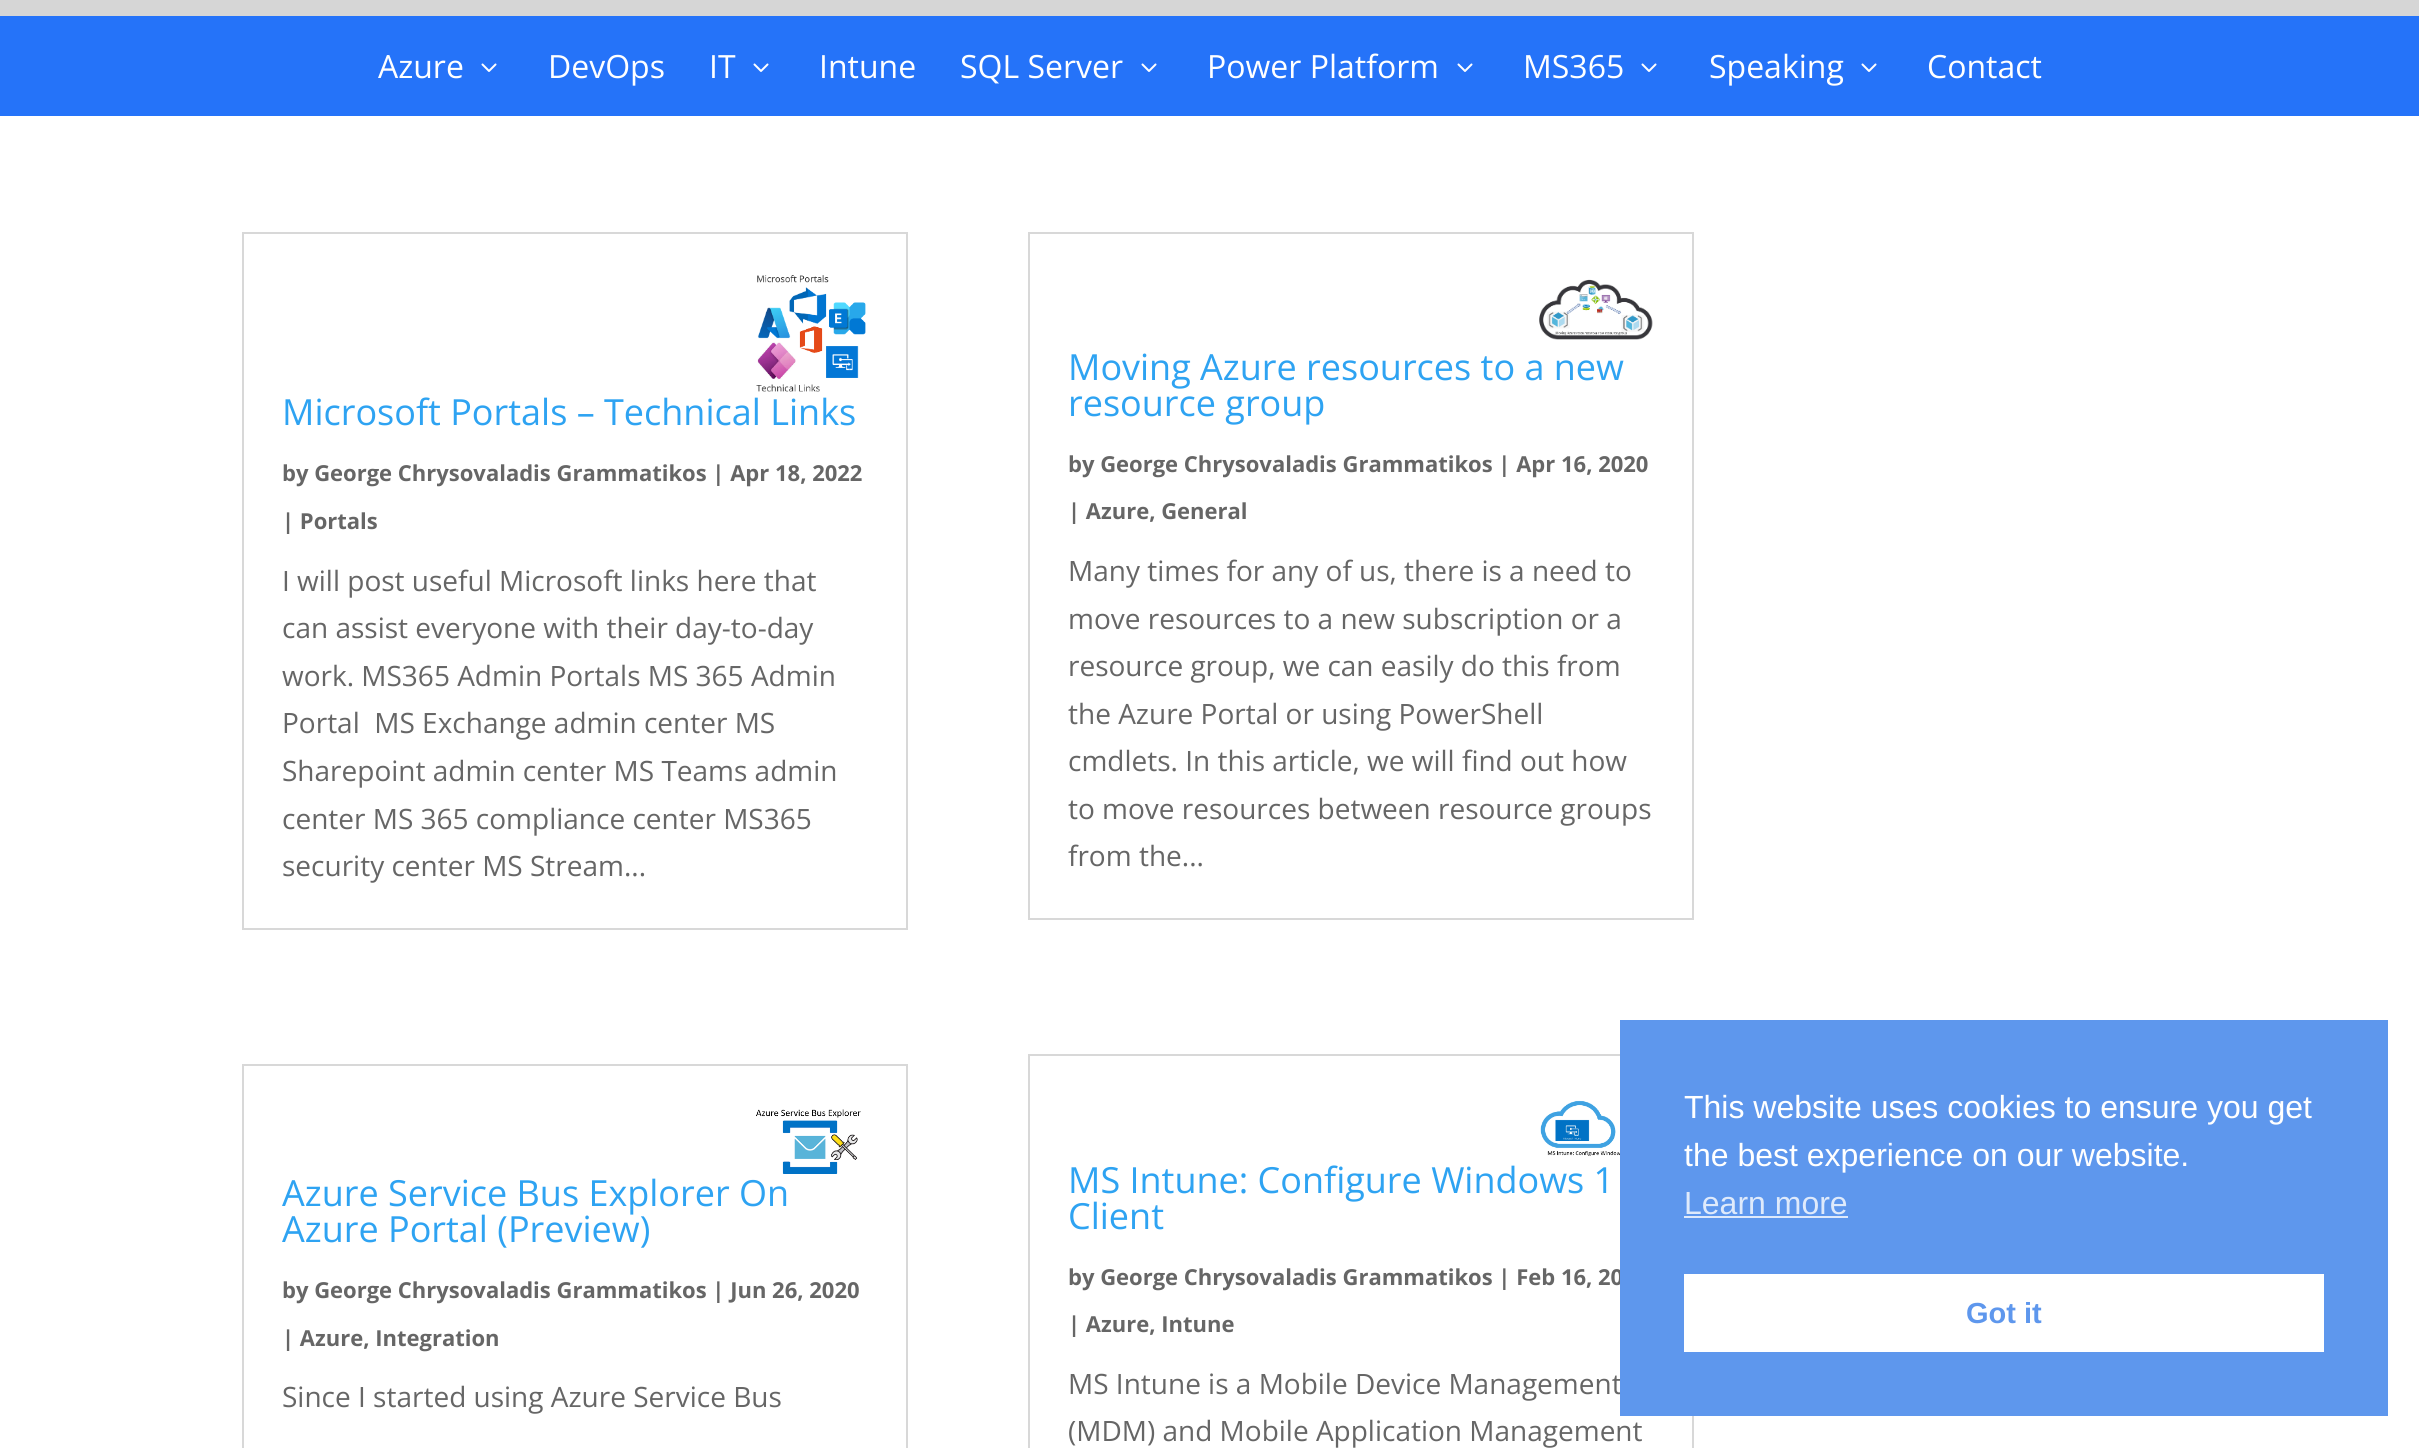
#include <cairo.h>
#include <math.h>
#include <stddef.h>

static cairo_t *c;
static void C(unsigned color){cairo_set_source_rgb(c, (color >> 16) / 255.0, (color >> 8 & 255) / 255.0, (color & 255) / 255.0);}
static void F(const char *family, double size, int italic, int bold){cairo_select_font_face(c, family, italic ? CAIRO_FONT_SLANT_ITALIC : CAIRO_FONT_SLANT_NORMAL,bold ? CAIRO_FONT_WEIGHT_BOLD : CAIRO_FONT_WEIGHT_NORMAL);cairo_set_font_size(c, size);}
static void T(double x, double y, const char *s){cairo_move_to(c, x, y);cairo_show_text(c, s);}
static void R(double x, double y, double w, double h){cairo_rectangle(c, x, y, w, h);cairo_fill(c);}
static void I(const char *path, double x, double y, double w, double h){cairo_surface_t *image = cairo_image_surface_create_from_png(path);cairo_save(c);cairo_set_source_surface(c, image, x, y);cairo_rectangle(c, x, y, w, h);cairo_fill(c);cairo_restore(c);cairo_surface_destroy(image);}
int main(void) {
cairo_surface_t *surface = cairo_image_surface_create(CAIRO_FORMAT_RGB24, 2419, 1448);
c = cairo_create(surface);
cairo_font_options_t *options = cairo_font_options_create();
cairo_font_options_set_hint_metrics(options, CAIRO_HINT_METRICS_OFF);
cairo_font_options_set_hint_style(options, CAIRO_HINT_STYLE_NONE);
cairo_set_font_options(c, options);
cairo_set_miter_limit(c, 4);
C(0xffffff);
cairo_paint(c);
C(0xd6d6d6);
R(0,0,2419,16);
C(0x2573f9);
R(0,16,2419,100);
F("Open Sans",32,0,0);
C(0xffffff);
T(378,78,"Azure");
I("1.png",481,63,16,9);
T(548,78,"DevOps");
T(709,78,"IT");
I("1.png",753,63,16,9);
T(819,78,"Intune");
T(960,78,"SQL Server");
I("1.png",1141,63,16,9);
T(1207,78,"Power Platform");
I("1.png",1457,63,16,9);
T(1523,78,"MS365");
I("1.png",1641,63,16,9);
T(1709,78,"Speaking");
I("1.png",1861,63,16,9);
T(1927,78,"Contact");
cairo_rectangle(c,243,233,664,696);
C(0xd8d8d8);
cairo_stroke(c);
I("2.png",756,275,110,117);
F("Open Sans",36,0,0);
C(0x2ea3f2);
T(282,425,"Microsoft Portals – Technical Links");
F("Open Sans",22,0,1);
C(0x666666);
T(282,481,"by George Chrysovaladis Grammatikos | Apr 18, 2022");
T(282,529,"| Portals");
F("Open Sans",28,0,0);
T(282,591,"I will post useful Microsoft links here that");
T(282,638,"can assist everyone with their day-to-day");
T(282,686,"work. MS365 Admin Portals MS 365 Admin");
T(282,733,"Portal  MS Exchange admin center MS");
T(282,781,"Sharepoint admin center MS Teams admin");
T(282,829,"center MS 365 compliance center MS365");
T(282,876,"security center MS Stream...");
cairo_rectangle(c,1029,233,664,686);
C(0xd8d8d8);
cairo_stroke(c);
I("3.png",1539,279,114,61);
F("Open Sans",36,0,0);
C(0x2ea3f2);
T(1068,380,"Moving Azure resources to a new");
T(1068,416,"resource group");
F("Open Sans",22,0,1);
C(0x666666);
T(1068,472,"by George Chrysovaladis Grammatikos | Apr 16, 2020");
T(1068,519,"| Azure, General");
F("Open Sans",28,0,0);
T(1068,581,"Many times for any of us, there is a need to");
T(1068,629,"move resources to a new subscription or a");
T(1068,676,"resource group, we can easily do this from");
T(1068,724,"the Azure Portal or using PowerShell");
T(1068,771,"cmdlets. In this article, we will find out how");
T(1068,819,"to move resources between resource groups");
T(1068,866,"from the...");
cairo_rectangle(c,243,1065,664,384);
C(0xd8d8d8);
cairo_stroke(c);
I("4.png",756,1109,105,65);
F("Open Sans",36,0,0);
C(0x2ea3f2);
T(282,1206,"Azure Service Bus Explorer On");
T(282,1242,"Azure Portal (Preview)");
F("Open Sans",22,0,1);
C(0x666666);
T(282,1298,"by George Chrysovaladis Grammatikos | Jun 26, 2020");
T(282,1346,"| Azure, Integration");
F("Open Sans",28,0,0);
T(282,1407,"Since I started using Azure Service Bus");
cairo_rectangle(c,1029,1055,664,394);
C(0xd8d8d8);
cairo_stroke(c);
I("5.png",1540,1100,80,56);
F("Open Sans",36,0,0);
C(0x2ea3f2);
T(1068,1193,"MS Intune: Configure Windows 1");
T(1068,1229,"Client");
F("Open Sans",22,0,1);
C(0x666666);
T(1068,1285,"by George Chrysovaladis Grammatikos | Feb 16, 20");
T(1068,1332,"| Azure, Intune");
F("Open Sans",28,0,0);
T(1068,1394,"MS Intune is a Mobile Device Management");
T(1068,1441,"(MDM) and Mobile Application Management");
C(0x5e97ed);
R(1620,1020,768,396);
F("Liberation Sans",32,0,0);
C(0xffffff);
T(1684,1118,"This website uses cookies to ensure you get");
T(1684,1166,"the best experience on our website.");
C(0xdfeafb);
T(1684,1214,"Learn more");
R(1684,1216,164,2);
C(0xffffff);
R(1684,1274,640,78);
F("Liberation Sans",29,0,1);
C(0x5e97ed);
T(1966,1323,"Got it");
cairo_surface_write_to_png(surface, "o.png");
cairo_font_options_destroy(options);
cairo_destroy(c);
cairo_surface_destroy(surface);
return 0;
}
